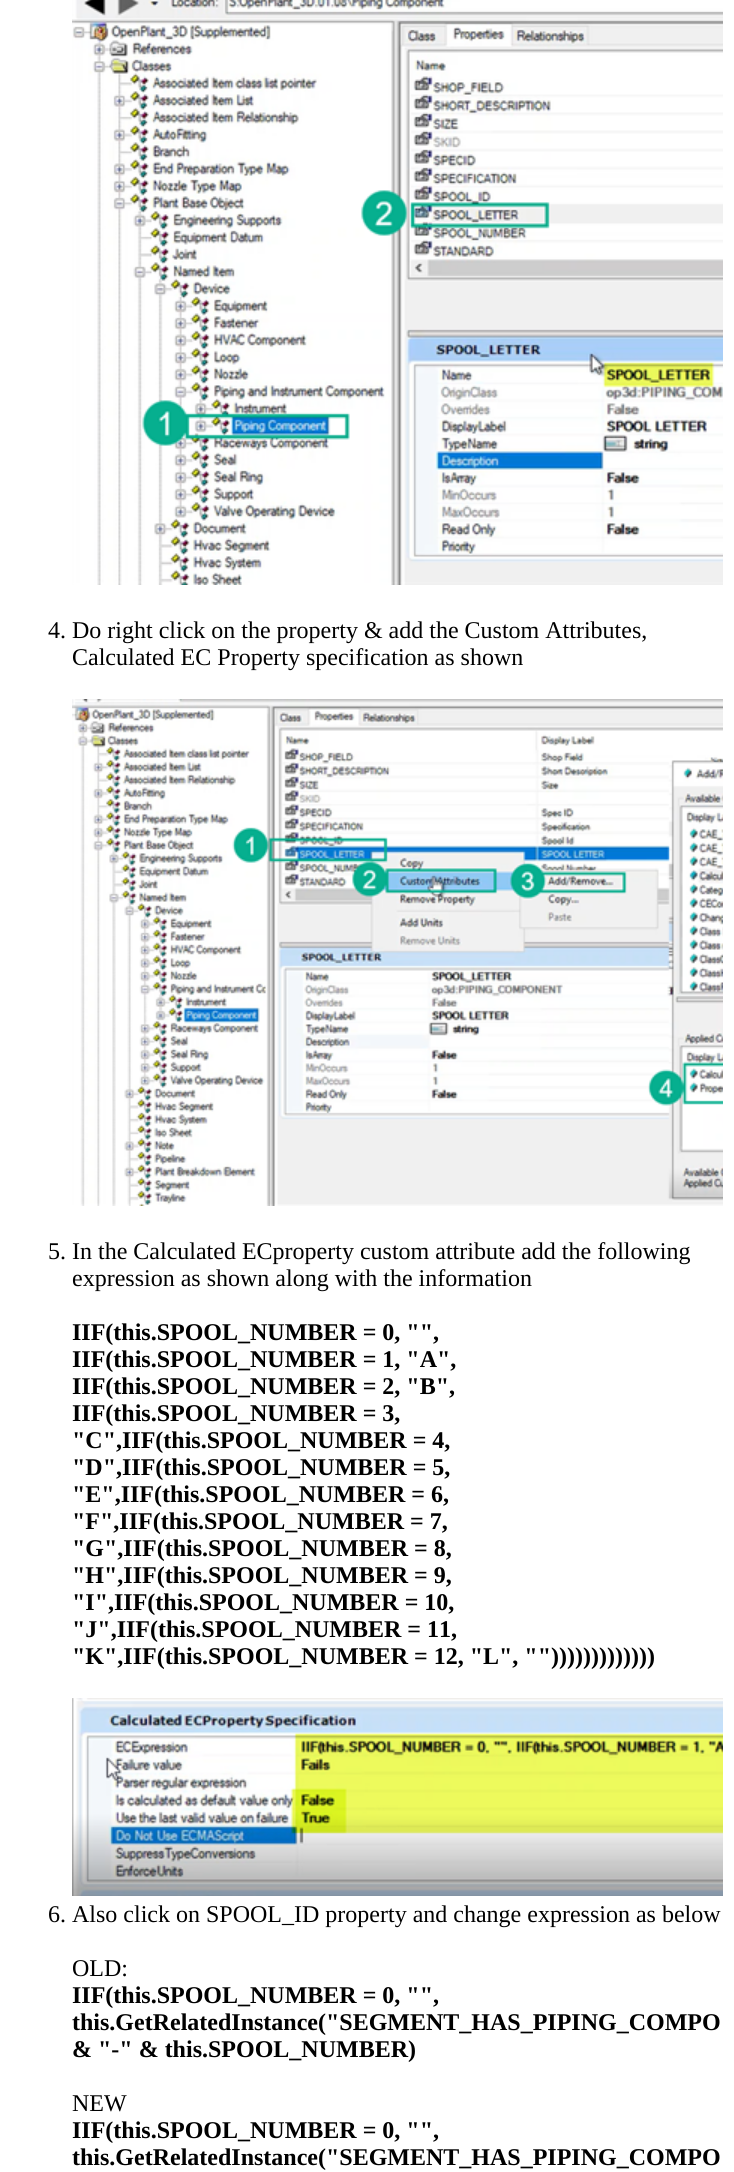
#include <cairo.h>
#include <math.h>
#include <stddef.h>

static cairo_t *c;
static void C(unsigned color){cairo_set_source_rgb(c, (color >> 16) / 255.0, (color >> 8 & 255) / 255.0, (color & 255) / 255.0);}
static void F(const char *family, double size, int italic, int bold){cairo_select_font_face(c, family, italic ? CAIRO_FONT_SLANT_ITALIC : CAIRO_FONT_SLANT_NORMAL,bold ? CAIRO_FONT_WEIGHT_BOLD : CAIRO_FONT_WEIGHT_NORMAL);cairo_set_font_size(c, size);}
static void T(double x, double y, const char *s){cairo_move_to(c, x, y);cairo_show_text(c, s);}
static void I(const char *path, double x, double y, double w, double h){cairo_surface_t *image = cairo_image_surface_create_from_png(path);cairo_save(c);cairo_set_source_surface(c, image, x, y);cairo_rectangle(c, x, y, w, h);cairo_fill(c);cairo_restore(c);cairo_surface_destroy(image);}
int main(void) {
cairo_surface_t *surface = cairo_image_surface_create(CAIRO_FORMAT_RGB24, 734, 2172);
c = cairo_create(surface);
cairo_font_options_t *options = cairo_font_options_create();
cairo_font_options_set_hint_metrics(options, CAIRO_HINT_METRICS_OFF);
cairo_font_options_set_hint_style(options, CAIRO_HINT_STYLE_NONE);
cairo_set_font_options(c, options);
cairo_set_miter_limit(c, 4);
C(0xffffff);
cairo_paint(c);
I("1.png",72,0,651,585);
F("Liberation Serif",24,0,0);
C(0x000000);
T(48,638,"4. Do right click on the property & add the Custom Attributes,");
T(72,665,"Calculated EC Property specification as shown");
I("2.png",72,699,651,507);
T(48,1259,"5. In the Calculated ECproperty custom attribute add the following");
T(72,1286,"expression as shown along with the information");
F("Liberation Serif",24,0,1);
T(72,1340,"IIF(this.SPOOL_NUMBER = 0, \"\",");
T(72,1367,"IIF(this.SPOOL_NUMBER = 1, \"A\",");
T(72,1394,"IIF(this.SPOOL_NUMBER = 2, \"B\",");
T(72,1421,"IIF(this.SPOOL_NUMBER = 3,");
T(72,1448,"\"C\",IIF(this.SPOOL_NUMBER = 4,");
T(72,1475,"\"D\",IIF(this.SPOOL_NUMBER = 5,");
T(72,1502,"\"E\",IIF(this.SPOOL_NUMBER = 6,");
T(72,1529,"\"F\",IIF(this.SPOOL_NUMBER = 7,");
T(72,1556,"\"G\",IIF(this.SPOOL_NUMBER = 8,");
T(72,1583,"\"H\",IIF(this.SPOOL_NUMBER = 9,");
T(72,1610,"\"I\",IIF(this.SPOOL_NUMBER = 10,");
T(72,1637,"\"J\",IIF(this.SPOOL_NUMBER = 11,");
T(72,1664,"\"K\",IIF(this.SPOOL_NUMBER = 12, \"L\", \"\")))))))))))))");
I("3.png",72,1698,651,198);
F("Liberation Serif",24,0,0);
T(48,1922,"6. Also click on SPOOL_ID property and change expression as below");
T(72,1976,"OLD:");
F("Liberation Serif",24,0,1);
T(72,2003,"IIF(this.SPOOL_NUMBER = 0, \"\",");
T(72,2030,"this.GetRelatedInstance(\"SEGMENT_HAS_PIPING_COMPO");
T(72,2057,"& \"-\" & this.SPOOL_NUMBER)");
F("Liberation Serif",24,0,0);
T(72,2111,"NEW");
F("Liberation Serif",24,0,1);
T(72,2138,"IIF(this.SPOOL_NUMBER = 0, \"\",");
T(72,2165,"this.GetRelatedInstance(\"SEGMENT_HAS_PIPING_COMPO");
cairo_surface_write_to_png(surface, "o.png");
cairo_font_options_destroy(options);
cairo_destroy(c);
cairo_surface_destroy(surface);
return 0;
}
